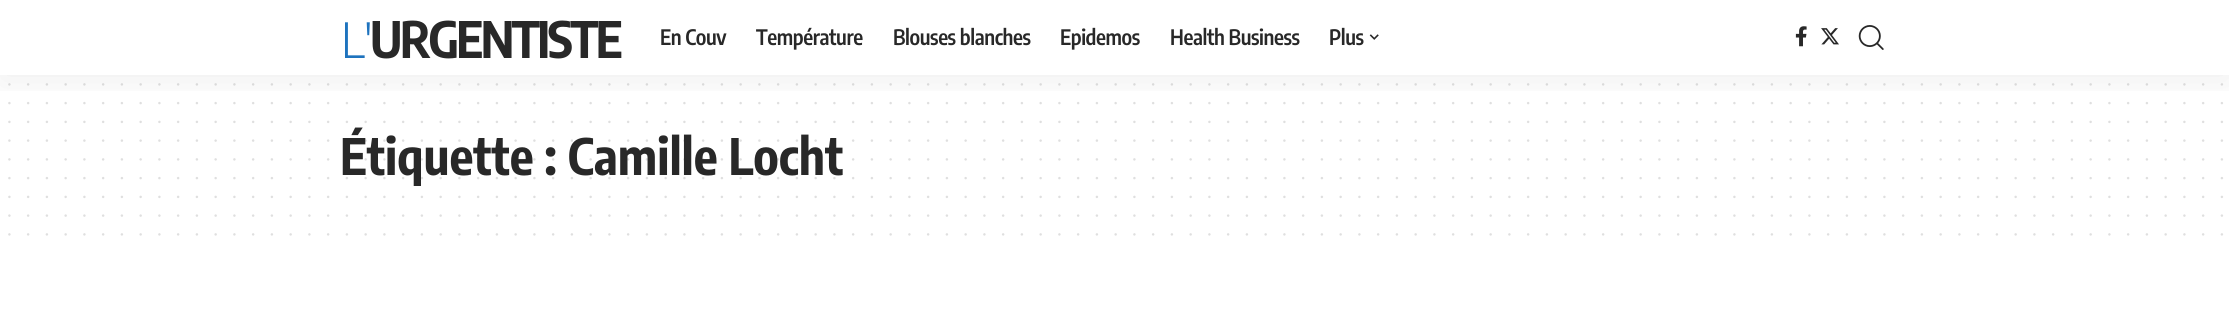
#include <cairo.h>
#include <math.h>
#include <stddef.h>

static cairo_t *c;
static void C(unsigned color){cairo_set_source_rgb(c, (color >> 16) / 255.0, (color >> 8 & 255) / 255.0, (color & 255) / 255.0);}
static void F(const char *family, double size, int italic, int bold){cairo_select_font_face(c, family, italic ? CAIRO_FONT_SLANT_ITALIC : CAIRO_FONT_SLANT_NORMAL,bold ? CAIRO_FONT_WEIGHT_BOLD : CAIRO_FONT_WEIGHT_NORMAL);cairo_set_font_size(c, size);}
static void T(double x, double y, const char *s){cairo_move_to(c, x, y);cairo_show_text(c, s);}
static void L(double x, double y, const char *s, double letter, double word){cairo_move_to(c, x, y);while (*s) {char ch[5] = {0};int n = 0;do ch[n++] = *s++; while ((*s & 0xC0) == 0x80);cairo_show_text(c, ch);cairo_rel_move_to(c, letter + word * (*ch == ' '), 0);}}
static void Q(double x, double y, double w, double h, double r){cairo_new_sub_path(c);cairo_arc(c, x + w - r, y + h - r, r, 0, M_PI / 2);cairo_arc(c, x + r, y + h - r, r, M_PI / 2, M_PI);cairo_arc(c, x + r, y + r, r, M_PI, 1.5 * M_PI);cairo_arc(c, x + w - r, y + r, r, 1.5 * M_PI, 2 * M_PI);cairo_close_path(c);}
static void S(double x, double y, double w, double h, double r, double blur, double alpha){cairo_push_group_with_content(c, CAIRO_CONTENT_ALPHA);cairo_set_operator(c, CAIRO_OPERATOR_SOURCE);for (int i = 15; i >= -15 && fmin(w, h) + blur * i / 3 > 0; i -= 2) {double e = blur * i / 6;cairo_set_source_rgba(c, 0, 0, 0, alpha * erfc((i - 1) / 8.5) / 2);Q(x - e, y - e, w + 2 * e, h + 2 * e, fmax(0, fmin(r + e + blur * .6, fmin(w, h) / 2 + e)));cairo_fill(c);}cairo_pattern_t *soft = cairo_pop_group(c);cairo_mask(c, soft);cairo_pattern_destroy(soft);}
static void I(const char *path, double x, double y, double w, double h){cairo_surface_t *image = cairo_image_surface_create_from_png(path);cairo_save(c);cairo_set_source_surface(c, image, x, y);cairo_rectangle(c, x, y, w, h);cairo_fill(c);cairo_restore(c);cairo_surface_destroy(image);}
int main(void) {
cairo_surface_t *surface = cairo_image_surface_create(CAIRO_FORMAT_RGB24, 2229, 316);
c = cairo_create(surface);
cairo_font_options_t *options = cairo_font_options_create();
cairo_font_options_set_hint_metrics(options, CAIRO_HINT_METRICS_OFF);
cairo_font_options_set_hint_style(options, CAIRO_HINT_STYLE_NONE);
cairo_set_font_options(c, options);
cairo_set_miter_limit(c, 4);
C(0xffffff);
cairo_paint(c);
cairo_new_path(c);
cairo_move_to(c,9.4,84.4);
cairo_line_to(c,2222.1,84.4);
C(0xdfdfdf);
cairo_set_line_width(c,2.5);
cairo_set_line_cap(c,CAIRO_LINE_CAP_ROUND);
cairo_set_dash(c,(double[]){0,18.75},2,0);
cairo_stroke(c);
cairo_new_path(c);
cairo_move_to(c,9.4,103.1);
cairo_line_to(c,2222.1,103.1);
cairo_stroke(c);
cairo_new_path(c);
cairo_move_to(c,9.4,121.9);
cairo_line_to(c,2222.1,121.9);
cairo_stroke(c);
cairo_save(c);
cairo_rectangle(c,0,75,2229,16);
cairo_clip(c);
C(0x000000);
S(0,5,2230,75,0,19,.07);
cairo_restore(c);
F("Noto Sans Light",50,0,0);
C(0x1e73be);
L(340,58,"L'",-2.5,0);
F("Encode Sans Condensed",50,0,1);
C(0x282828);
L(370,58,"URGENTISTE",-2.5,0);
F("Encode Sans Condensed SemiBold",21.25,0,0);
L(660,45,"En Couv",-.4,0);
L(756,45,"Température",-.4,0);
L(893,45,"Blouses blanches",-.4,0);
L(1060,45,"Epidemos",-.4,0);
L(1170,45,"Health Business",-.4,0);
L(1329,45,"Plus",-.4,0);
I("1.png",1369,34,10,6);
I("2.png",1795,26,12,21);
I("3.png",1821,28,18,17);
I("4.png",1858,25,26,25);
F("Encode Sans Condensed",50,0,1);
T(340,175,"Étiquette : Camille Locht");
cairo_new_path(c);
cairo_move_to(c,9.4,140.6);
cairo_line_to(c,2222.1,140.6);
cairo_set_source_rgba(c,0.157,0.157,0.157,0.15);
cairo_stroke(c);
cairo_new_path(c);
cairo_move_to(c,9.4,159.4);
cairo_line_to(c,2222.1,159.4);
cairo_stroke(c);
cairo_new_path(c);
cairo_move_to(c,9.4,178.1);
cairo_line_to(c,2222.1,178.1);
cairo_stroke(c);
cairo_new_path(c);
cairo_move_to(c,9.4,196.9);
cairo_line_to(c,2222.1,196.9);
C(0xdfdfdf);
cairo_stroke(c);
cairo_new_path(c);
cairo_move_to(c,9.4,215.6);
cairo_line_to(c,2222.1,215.6);
cairo_stroke(c);
cairo_new_path(c);
cairo_move_to(c,9.4,234.4);
cairo_line_to(c,2222.1,234.4);
cairo_stroke(c);
cairo_surface_write_to_png(surface, "o.png");
cairo_font_options_destroy(options);
cairo_destroy(c);
cairo_surface_destroy(surface);
return 0;
}
